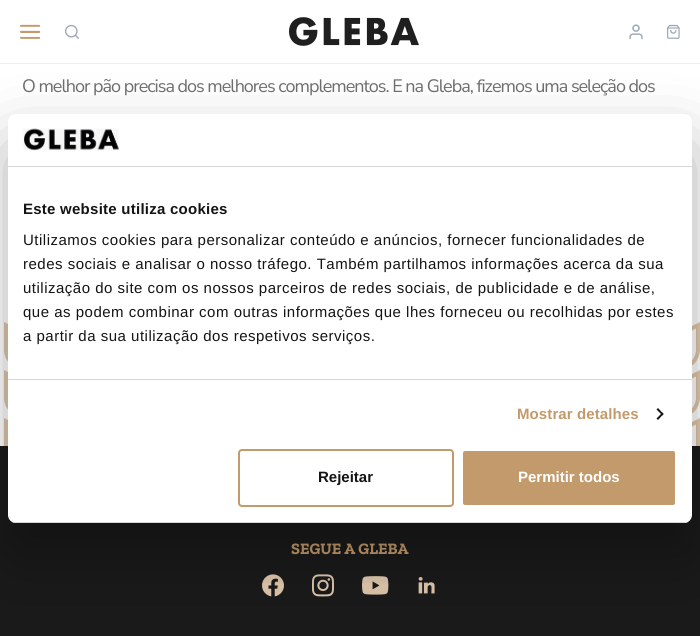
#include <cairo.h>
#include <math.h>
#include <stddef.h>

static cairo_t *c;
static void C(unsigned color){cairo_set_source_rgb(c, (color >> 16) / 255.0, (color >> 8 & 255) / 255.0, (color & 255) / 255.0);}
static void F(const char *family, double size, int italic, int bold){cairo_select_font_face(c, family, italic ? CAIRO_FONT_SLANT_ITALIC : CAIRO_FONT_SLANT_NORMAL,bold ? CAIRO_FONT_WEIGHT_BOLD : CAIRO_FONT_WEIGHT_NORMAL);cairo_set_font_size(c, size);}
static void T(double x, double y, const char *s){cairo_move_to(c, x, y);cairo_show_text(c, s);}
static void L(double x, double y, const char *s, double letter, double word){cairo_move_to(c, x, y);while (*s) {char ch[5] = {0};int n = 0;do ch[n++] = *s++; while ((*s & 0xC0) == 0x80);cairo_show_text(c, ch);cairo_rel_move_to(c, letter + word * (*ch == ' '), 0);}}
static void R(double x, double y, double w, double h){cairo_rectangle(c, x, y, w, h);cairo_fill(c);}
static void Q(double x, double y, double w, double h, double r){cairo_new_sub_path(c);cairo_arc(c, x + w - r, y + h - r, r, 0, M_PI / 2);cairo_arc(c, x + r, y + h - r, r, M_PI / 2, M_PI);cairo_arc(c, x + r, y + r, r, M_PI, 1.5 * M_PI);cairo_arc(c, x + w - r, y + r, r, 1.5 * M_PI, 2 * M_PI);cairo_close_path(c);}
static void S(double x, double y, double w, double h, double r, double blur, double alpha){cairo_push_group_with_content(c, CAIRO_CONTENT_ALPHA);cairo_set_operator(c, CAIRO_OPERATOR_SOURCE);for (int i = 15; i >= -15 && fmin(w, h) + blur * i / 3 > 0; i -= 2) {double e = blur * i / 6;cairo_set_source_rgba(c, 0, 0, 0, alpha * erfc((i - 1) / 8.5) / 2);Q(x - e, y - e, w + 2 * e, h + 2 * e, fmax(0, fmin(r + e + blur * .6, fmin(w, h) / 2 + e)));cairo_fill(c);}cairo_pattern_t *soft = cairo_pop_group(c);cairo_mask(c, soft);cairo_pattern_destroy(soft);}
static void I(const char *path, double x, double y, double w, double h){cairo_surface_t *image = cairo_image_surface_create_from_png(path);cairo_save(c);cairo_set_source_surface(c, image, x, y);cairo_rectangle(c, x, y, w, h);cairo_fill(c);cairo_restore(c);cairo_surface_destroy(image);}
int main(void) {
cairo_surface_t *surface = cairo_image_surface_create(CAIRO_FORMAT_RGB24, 700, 636);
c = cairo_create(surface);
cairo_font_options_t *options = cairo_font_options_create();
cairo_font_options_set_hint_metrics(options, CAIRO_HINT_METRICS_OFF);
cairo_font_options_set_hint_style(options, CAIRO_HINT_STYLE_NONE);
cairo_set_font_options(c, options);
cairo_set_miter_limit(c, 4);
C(0xffffff);
cairo_paint(c);
C(0xeeeeee);
R(0,63,700,1);
I("1.png",20,24,21,15);
I("2.png",65,24,14,15);
I("3.png",289,17,130,29);
I("4.png",667,24,13,15);
I("5.png",629,24,14,16);
F("Nunito Sans",18,0,0);
C(0x6e6e6e);
L(22,92,"O melhor pão precisa dos melhores complementos. E na Gleba, fizemos uma seleção dos",-1,0);
I("6.png",4,322,696,124);
C(0x1a1a1a);
R(0,446,700,190);
F("Zilla Slab",16,0,1);
C(0xc39a6b);
T(291,554,"SEGUE A GLEBA");
I("7.png",262,574,22,23);
I("8.png",312,574,22,23);
I("9.png",362,576,27,19);
I("10.png",418,577,17,17);
C(0x000000);
S(8,146,684,409,8,34,.3);
C(0xffffff);
Q(8,114,684,409,8);
cairo_fill(c);
C(0xd6d6d6);
R(8,166,684,1);
I("11.png",23,128,97,23);
R(8,379,684,1);
F("Liberation Sans",15,0,1);
C(0x141414);
L(23,214,"Este website utiliza cookies",.25,0);
F("Liberation Sans",15,0,0);
L(23,245,"Utilizamos cookies para personalizar conteúdo e anúncios, fornecer funcionalidades de",.5,0);
L(23,269,"redes sociais e analisar o nosso tráfego. Também partilhamos informações acerca da sua",.5,0);
L(23,293,"utilização do site com os nossos parceiros de redes sociais, de publicidade e de análise,",.5,0);
L(23,317,"que as podem combinar com outras informações que lhes forneceu ou recolhidas por estes",.5,0);
L(23,341,"a partir da sua utilização dos respetivos serviços.",.5,0);
F("Liberation Sans",15,0,1);
C(0xc39a6b);
L(517,419,"Mostrar detalhes",.1,0);
C(0x141414);
cairo_new_path(c);
cairo_move_to(c,658,408);
cairo_line_to(c,663.5,414);
cairo_line_to(c,662.5,415.5);
cairo_line_to(c,656.5,409.5);
cairo_close_path(c);
cairo_fill(c);
cairo_new_path(c);
cairo_move_to(c,662.5,412.5);
cairo_line_to(c,663.5,414);
cairo_line_to(c,658,420);
cairo_line_to(c,656.5,418.5);
cairo_close_path(c);
cairo_fill(c);
cairo_save(c);
Q(8,114,684,409,8);
cairo_clip(c);
C(0xd6d6d6);
R(8,522,684,1);
cairo_restore(c);
Q(239,450,214,56,3);
C(0xc39a6b);
cairo_stroke(c);
C(0x141414);
T(318,482,"Rejeitar");
C(0xc39a6b);
Q(462,450,214,56,3);
cairo_fill_preserve(c);
C(0xffffff);
cairo_stroke(c);
T(518,482,"Permitir todos");
cairo_surface_write_to_png(surface, "o.png");
cairo_font_options_destroy(options);
cairo_destroy(c);
cairo_surface_destroy(surface);
return 0;
}
